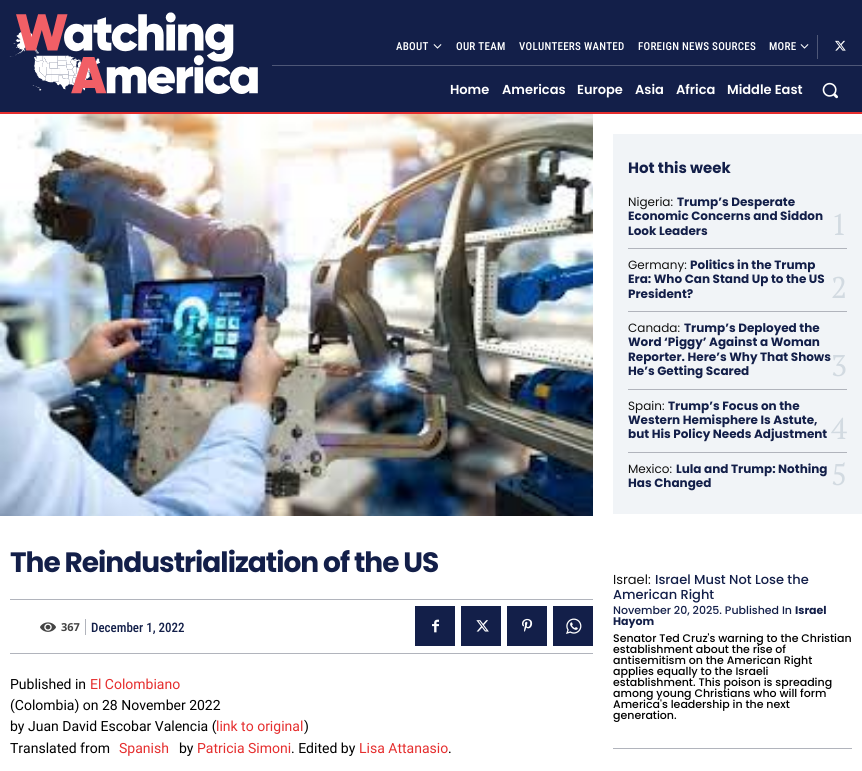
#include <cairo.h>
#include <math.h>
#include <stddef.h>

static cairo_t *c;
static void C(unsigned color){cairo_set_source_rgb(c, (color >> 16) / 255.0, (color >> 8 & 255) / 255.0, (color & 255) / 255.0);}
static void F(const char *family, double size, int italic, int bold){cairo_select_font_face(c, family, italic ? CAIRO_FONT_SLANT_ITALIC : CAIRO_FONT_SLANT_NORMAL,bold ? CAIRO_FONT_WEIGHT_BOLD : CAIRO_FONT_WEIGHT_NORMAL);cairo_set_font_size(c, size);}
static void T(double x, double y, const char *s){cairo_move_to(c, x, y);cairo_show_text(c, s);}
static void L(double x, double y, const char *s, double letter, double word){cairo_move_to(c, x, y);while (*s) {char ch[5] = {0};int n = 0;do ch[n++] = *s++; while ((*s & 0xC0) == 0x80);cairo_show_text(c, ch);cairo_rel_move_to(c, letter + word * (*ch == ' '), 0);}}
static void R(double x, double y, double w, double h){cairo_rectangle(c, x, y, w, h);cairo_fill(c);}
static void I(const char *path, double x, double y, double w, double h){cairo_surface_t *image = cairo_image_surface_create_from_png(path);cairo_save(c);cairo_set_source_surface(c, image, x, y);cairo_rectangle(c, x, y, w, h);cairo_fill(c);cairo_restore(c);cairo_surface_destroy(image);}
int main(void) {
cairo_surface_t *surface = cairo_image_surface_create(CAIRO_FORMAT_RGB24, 862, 771);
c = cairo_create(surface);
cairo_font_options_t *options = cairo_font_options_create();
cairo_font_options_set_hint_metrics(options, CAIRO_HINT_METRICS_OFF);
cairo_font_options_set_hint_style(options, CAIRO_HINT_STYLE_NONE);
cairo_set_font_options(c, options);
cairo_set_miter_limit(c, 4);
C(0xffffff);
cairo_paint(c);
C(0x131f49);
R(0,0,862,112);
I("1.png",9,12,249,82);
F("Roboto Condensed Medium",11,0,0);
C(0xffffff);
L(396,50,"ABOUT",.25,0);
I("2.png",433,44,9,5);
L(456,50,"OUR TEAM",.25,0);
L(519,50,"VOLUNTEERS WANTED",.25,0);
L(638,50,"FOREIGN NEWS SOURCES",.25,0);
L(769,50,"MORE",.25,0);
I("2.png",800,44,9,5);
C(0x4e5777);
R(817,35,1,24);
I("3.png",835,40,11,11);
R(272,65,590,1);
F("Poppins SemiBold",13,0,0);
C(0xffffff);
T(450,94,"Home");
T(502,94,"Americas");
T(577,94,"Europe");
T(635,94,"Asia");
T(676,94,"Africa");
T(727,94,"Middle East");
I("4.png",822,82,16,17);
C(0xe52e2e);
R(0,112,862,2);
I("5.png",0,114,593,402);
F("Poppins",28,0,1);
C(0x131f49);
L(10,572,"The Reindustrialization of the US",-1,0);
C(0xb1b4bc);
R(10,599,583,1);
R(10,653,583,1);
I("6.png",40,622,16,10);
F("Open Sans",11,0,1);
C(0x444444);
T(61,631,"367");
C(0xb1b4bc);
R(85,619,1,16);
F("Roboto Condensed Medium",13,0,0);
C(0x131f49);
T(91,632,"December 1, 2022");
R(415,606,40,40);
I("7.png",432,619,7,14);
R(461,606,40,40);
I("8.png",476,620,13,12);
R(507,606,40,40);
I("9.png",522,618,11,14);
R(553,606,40,40);
I("10.png",566,618,16,16);
F("Roboto",14,0,0);
C(0x000000);
T(10,689,"Published in");
C(0xe52e2e);
T(90,689,"El Colombiano");
C(0x000000);
T(10,710,"(Colombia) on 28 November 2022");
T(10,731,"by Juan David Escobar Valencia (");
C(0xe52e2e);
T(216,731,"link to original");
C(0x000000);
T(304,731,")");
T(10,753,"Translated from");
C(0xe52e2e);
T(119,753,"Spanish");
C(0x000000);
T(179,753,"by");
C(0xe52e2e);
T(197,753,"Patricia Simoni");
C(0x000000);
T(291,753,". Edited by");
C(0xe52e2e);
T(359,753,"Lisa Attanasio");
C(0x000000);
T(448,753,".");
C(0xf1f4f7);
R(613,134,249,380);
F("Poppins",15,0,1);
C(0x131f49);
T(628,173,"Hot this week");
F("Poppins",12,0,0);
C(0x111111);
T(628,206,"Nigeria:");
F("Poppins",12,0,1);
C(0x131f49);
T(677,206,"Trump’s Desperate");
T(628,220,"Economic Concerns and Siddon");
T(628,235,"Look Leaders");
C(0xb1b4bc);
R(628,248,219,1);
F("PT Serif",30,0,0);
C(0xd2dae1);
T(831,235,"1");
F("Poppins",12,0,0);
C(0x111111);
T(628,269,"Germany:");
F("Poppins",12,0,1);
C(0x131f49);
T(690,269,"Politics in the Trump");
T(628,283,"Era: Who Can Stand Up to the US");
T(628,298,"President?");
C(0xb1b4bc);
R(628,311,219,1);
F("PT Serif",30,0,0);
C(0xd2dae1);
T(831,298,"2");
F("Poppins",12,0,0);
C(0x111111);
T(628,332,"Canada:");
F("Poppins",12,0,1);
C(0x131f49);
T(684,332,"Trump’s Deployed the");
T(628,346,"Word ‘Piggy’ Against a Woman");
T(628,361,"Reporter. Here’s Why That Shows");
T(628,375,"He’s Getting Scared");
C(0xb1b4bc);
R(628,389,219,1);
F("PT Serif",30,0,0);
C(0xd2dae1);
T(831,376,"3");
F("Poppins",12,0,0);
C(0x111111);
T(628,410,"Spain:");
F("Poppins",12,0,1);
C(0x131f49);
T(668,410,"Trump’s Focus on the");
T(628,424,"Western Hemisphere Is Astute,");
T(628,438,"but His Policy Needs Adjustment");
C(0xb1b4bc);
R(628,452,219,1);
F("PT Serif",30,0,0);
C(0xd2dae1);
T(831,439,"4");
F("Poppins",12,0,0);
C(0x111111);
T(628,473,"Mexico:");
F("Poppins",12,0,1);
C(0x131f49);
T(676,473,"Lula and Trump: Nothing");
T(628,487,"Has Changed");
F("PT Serif",30,0,0);
C(0xd2dae1);
T(831,485,"5");
F("Poppins",13,0,0);
C(0x111111);
T(613,584,"Israel:");
F("Poppins Medium",13,0,0);
C(0x131f49);
T(655,584,"Israel Must Not Lose the");
T(613,599,"American Right");
F("Poppins Medium",11,0,0);
T(613,614,"November 20, 2025. Published In");
F("Poppins",11,0,1);
T(795,614,"Israel");
T(613,625,"Hayom");
F("Poppins Medium",11,0,0);
C(0x000000);
T(613,642,"Senator Ted Cruz's warning to the Christian");
T(613,653,"establishment about the rise of");
T(613,664,"antisemitism on the American Right");
T(613,675,"applies equally to the Israeli");
T(613,686,"establishment. This poison is spreading");
T(613,697,"among young Christians who will form");
T(613,708,"America's leadership in the next");
T(613,719,"generation.");
C(0xb1b4bc);
R(613,748,239,1);
cairo_surface_write_to_png(surface, "o.png");
cairo_font_options_destroy(options);
cairo_destroy(c);
cairo_surface_destroy(surface);
return 0;
}
